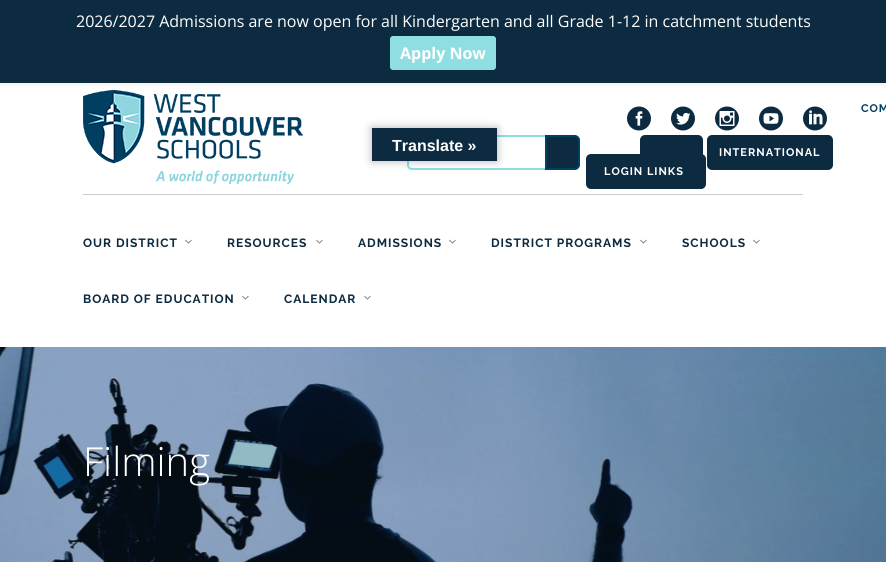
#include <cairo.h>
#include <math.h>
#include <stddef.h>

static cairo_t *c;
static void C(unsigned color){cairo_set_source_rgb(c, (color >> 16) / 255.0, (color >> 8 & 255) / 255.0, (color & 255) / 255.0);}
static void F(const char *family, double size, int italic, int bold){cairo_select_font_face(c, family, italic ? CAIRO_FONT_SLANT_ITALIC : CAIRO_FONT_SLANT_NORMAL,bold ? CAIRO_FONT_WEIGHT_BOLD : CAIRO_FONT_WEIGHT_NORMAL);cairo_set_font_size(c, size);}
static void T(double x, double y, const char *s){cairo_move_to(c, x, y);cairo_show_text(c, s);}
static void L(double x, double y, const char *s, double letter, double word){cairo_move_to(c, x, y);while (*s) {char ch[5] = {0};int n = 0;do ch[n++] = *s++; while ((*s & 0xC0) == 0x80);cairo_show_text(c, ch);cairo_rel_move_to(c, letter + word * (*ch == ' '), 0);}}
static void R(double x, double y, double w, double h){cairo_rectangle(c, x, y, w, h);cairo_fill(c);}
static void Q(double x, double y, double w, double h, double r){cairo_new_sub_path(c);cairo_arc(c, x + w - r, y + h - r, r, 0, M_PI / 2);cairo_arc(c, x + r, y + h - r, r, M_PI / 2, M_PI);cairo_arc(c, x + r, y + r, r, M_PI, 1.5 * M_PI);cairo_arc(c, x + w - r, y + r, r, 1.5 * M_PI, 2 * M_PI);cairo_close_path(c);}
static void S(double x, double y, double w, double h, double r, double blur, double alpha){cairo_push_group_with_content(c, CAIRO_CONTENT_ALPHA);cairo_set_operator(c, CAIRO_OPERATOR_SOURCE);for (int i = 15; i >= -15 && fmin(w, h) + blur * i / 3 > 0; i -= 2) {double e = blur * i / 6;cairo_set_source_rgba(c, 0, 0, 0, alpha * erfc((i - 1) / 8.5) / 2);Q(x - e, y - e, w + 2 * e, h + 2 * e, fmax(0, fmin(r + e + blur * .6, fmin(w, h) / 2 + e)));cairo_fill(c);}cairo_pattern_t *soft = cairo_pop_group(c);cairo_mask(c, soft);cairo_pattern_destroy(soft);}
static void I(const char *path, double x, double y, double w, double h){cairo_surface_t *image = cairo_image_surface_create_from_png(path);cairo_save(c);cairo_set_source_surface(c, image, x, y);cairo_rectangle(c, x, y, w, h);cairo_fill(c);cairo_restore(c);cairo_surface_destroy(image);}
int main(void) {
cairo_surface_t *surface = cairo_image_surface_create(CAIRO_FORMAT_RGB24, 886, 562);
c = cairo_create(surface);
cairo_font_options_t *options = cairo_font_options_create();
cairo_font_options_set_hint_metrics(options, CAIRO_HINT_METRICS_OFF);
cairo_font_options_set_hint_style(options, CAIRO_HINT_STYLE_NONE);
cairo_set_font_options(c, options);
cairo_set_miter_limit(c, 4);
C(0xffffff);
cairo_paint(c);
I("6.png",83,90,220,94);
C(0x000000);
S(0,3,886,83,0,2,.05);
C(0x0c2a40);
R(0,0,886,83);
F("Open Sans",16,0,0);
C(0xffffff);
T(76,27,"2026/2027 Admissions are now open for all Kindergarten and all Grade 1-12 in catchment students");
C(0x8fdfe2);
Q(390,36,106,34,3);
cairo_fill(c);
F("Open Sans",16,0,1);
C(0xffffff);
T(400,59,"Apply Now");
C(0xcccccc);
R(83,194,720,1);
F("Raleway Thin",11,0,0);
C(0x004165);
L(861,112,"COM",1,0);
I("1.png",627,106,24,25);
I("2.png",671,106,24,25);
I("3.png",715,106,24,25);
I("4.png",759,106,24,25);
I("5.png",803,106,24,25);
C(0x8fdfe2);
cairo_set_fill_rule(c,CAIRO_FILL_RULE_EVEN_ODD);
cairo_new_path(c);
cairo_move_to(c,412,135);
cairo_line_to(c,545,135);
cairo_line_to(c,545,170);
cairo_line_to(c,412,170);
cairo_curve_to(c,409,170,407,168,407,165);
cairo_line_to(c,407,140);
cairo_curve_to(c,407,137,409,135,412,135);
cairo_close_path(c);
cairo_move_to(c,412,137);
cairo_line_to(c,545,137);
cairo_line_to(c,545,168);
cairo_line_to(c,412,168);
cairo_curve_to(c,410,168,409,167,409,165);
cairo_line_to(c,409,140);
cairo_curve_to(c,409,138,410,137,412,137);
cairo_close_path(c);
cairo_fill(c);
C(0x0c2a40);
cairo_new_path(c);
cairo_move_to(c,546,136);
cairo_line_to(c,575,136);
cairo_curve_to(c,577,136,579,138,579,140);
cairo_line_to(c,579,165);
cairo_curve_to(c,579,167,577,169,575,169);
cairo_line_to(c,546,169);
cairo_close_path(c);
cairo_fill_preserve(c);
C(0x004165);
cairo_stroke(c);
C(0x0c2a40);
Q(708,136,124,33,4);
cairo_fill_preserve(c);
cairo_stroke(c);
C(0xffffff);
L(719,156,"INTERNATIONAL",1,0);
C(0x0c2a40);
Q(641,136,61,30,4);
cairo_fill_preserve(c);
cairo_stroke(c);
Q(586,154,120,35,5);
cairo_fill(c);
C(0xffffff);
L(604,175,"LOGIN LINKS",1,0);
F("Raleway Thin",12,0,0);
C(0x0c2a40);
L(83,247,"OUR DISTRICT",1,0);
I("7.png",185,239,7,5);
L(227,247,"RESOURCES",1,0);
I("7.png",316,239,7,5);
L(358,247,"ADMISSIONS",1,0);
I("7.png",449,239,7,5);
L(491,247,"DISTRICT PROGRAMS",1,0);
I("7.png",640,239,7,5);
L(682,247,"SCHOOLS",1,0);
I("7.png",753,239,7,5);
L(83,303,"BOARD OF EDUCATION",1,0);
I("7.png",242,295,7,5);
L(284,303,"CALENDAR",1,0);
I("7.png",364,295,7,5);
C(0x000000);
S(372,128,125,33,0,4.5,.3);
C(0x0c2a40);
R(372,128,125,33);
F("Liberation Sans",16,0,1);
C(0xffffff);
T(392,151,"Translate »");
I("8.png",0,347,886,215);
F("Open Sans Light",40,0,0);
T(83,476,"Filming");
cairo_surface_write_to_png(surface, "o.png");
cairo_font_options_destroy(options);
cairo_destroy(c);
cairo_surface_destroy(surface);
return 0;
}
